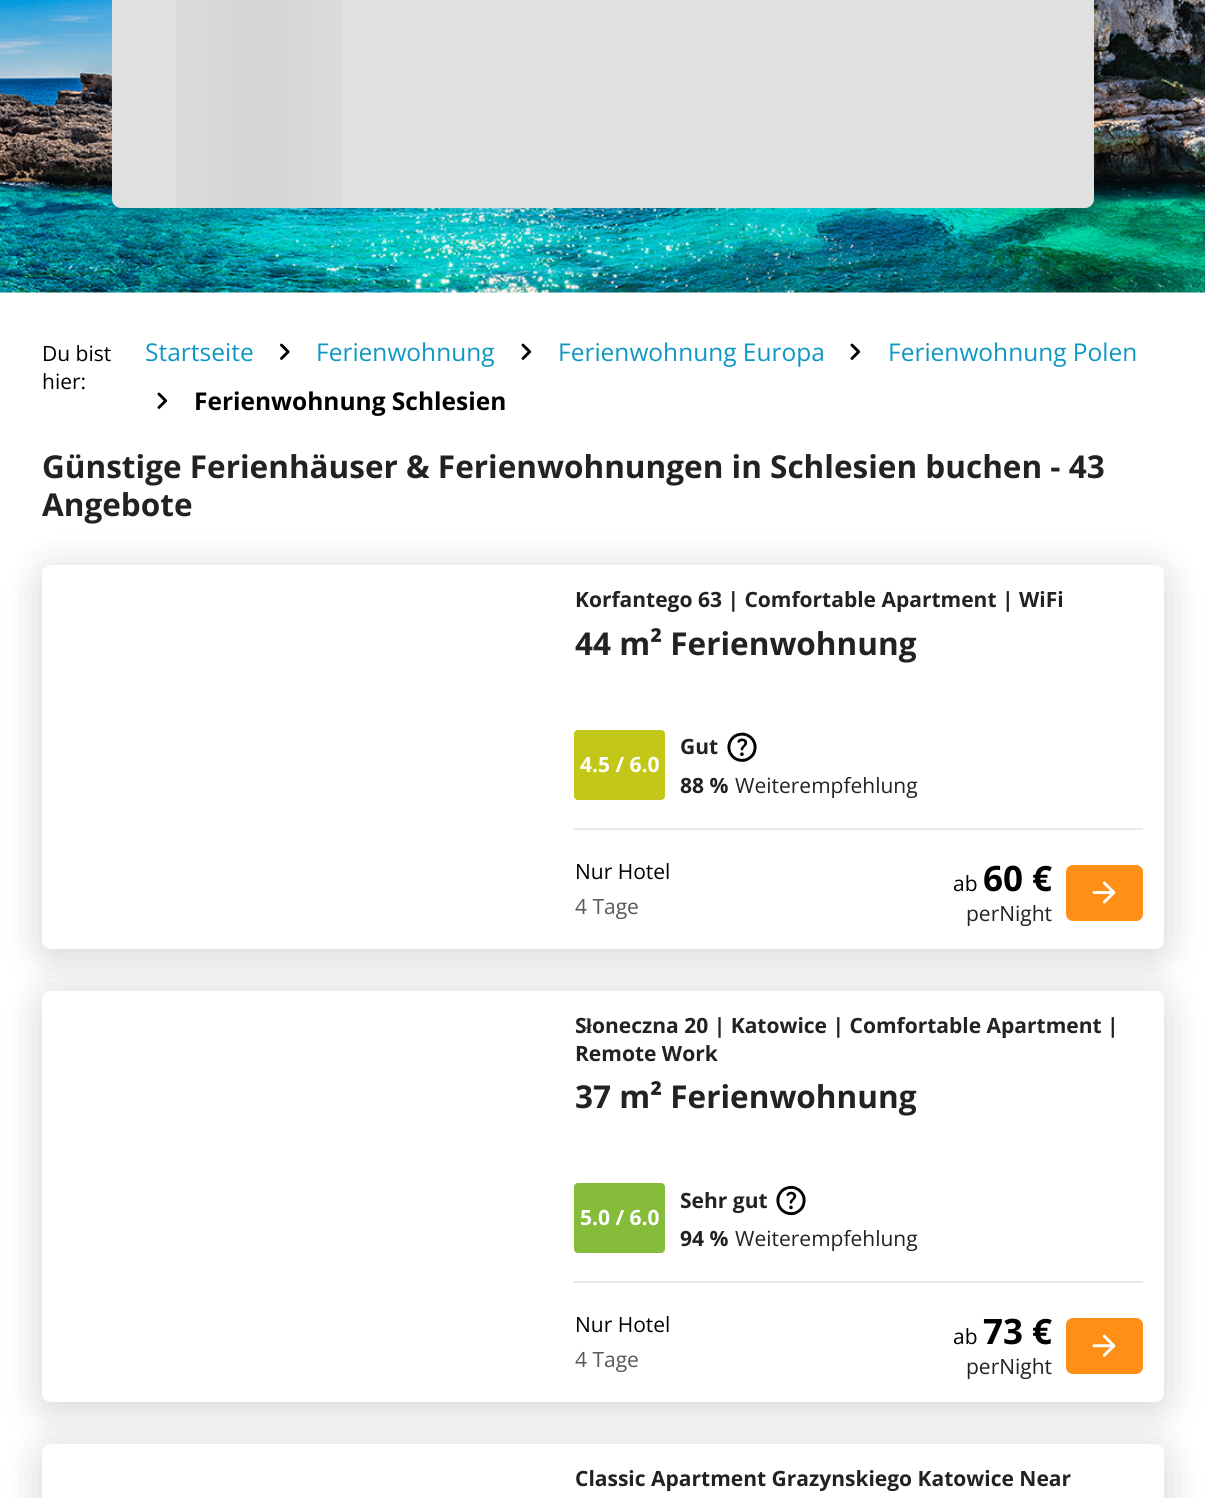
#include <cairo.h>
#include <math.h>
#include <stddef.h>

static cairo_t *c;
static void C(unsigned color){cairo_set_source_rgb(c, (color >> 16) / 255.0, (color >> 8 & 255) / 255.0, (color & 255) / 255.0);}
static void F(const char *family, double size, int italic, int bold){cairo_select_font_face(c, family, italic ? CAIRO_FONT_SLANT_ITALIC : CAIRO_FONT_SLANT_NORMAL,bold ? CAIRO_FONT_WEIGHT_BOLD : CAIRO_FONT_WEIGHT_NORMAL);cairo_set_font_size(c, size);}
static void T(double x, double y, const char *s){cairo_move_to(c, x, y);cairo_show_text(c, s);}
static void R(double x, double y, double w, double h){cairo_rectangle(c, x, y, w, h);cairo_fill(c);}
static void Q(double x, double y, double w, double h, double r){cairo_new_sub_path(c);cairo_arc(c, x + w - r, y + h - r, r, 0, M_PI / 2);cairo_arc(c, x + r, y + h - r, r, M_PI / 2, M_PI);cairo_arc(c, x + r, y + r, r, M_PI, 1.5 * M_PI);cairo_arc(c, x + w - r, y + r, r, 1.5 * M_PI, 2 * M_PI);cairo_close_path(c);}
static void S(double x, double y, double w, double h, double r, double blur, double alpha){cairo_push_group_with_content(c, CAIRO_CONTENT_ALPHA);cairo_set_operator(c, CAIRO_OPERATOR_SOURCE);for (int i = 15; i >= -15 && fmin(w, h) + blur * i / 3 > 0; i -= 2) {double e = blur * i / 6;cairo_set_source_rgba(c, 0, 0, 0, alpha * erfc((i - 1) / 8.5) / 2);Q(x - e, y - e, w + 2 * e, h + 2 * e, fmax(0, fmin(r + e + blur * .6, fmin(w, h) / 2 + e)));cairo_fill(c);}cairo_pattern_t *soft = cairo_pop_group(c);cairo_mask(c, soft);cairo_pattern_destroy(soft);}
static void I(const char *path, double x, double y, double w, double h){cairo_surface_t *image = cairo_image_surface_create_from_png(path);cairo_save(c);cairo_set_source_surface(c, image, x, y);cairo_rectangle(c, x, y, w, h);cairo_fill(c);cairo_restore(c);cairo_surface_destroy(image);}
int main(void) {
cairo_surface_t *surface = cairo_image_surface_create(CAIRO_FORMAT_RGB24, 1205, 1498);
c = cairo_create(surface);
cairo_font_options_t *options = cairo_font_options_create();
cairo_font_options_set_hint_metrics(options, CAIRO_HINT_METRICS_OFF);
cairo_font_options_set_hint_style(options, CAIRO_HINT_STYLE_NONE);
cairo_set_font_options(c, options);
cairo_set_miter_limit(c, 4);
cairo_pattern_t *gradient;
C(0xffffff);
cairo_paint(c);
I("1.png",0,0,1205,293);
C(0xe0e0e0);
Q(112,-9,982,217,9);
cairo_fill(c);
gradient = cairo_pattern_create_linear(112,33,1094,33);
cairo_pattern_add_color_stop_rgba(gradient,0,0,0,0,0);
cairo_pattern_add_color_stop_rgba(gradient,.15,0,0,0,.05);
cairo_pattern_add_color_stop_rgba(gradient,.3,0,0,0,0);
cairo_set_source(c,gradient);
cairo_pattern_destroy(gradient);
R(176,0,167,208);
F("Open Sans",21,0,0);
C(0x000000);
T(42,361,"Du bist");
T(42,389,"hier:");
F("Open Sans",24.5,0,0);
C(0x0e97c2);
T(145,361,"Startseite");
I("2.png",280,343,10,17);
T(316,361,"Ferienwohnung");
I("3.png",521,343,11,17);
T(558,361,"Ferienwohnung Europa");
I("3.png",850,343,11,17);
T(888,361,"Ferienwohnung Polen");
I("3.png",157,392,11,17);
F("Open Sans",24.5,0,1);
C(0x000000);
T(194,410,"Ferienwohnung Schlesien");
F("Open Sans",31.5,0,1);
C(0x222222);
T(42,478,"Günstige Ferienhäuser & Ferienwohnungen in Schlesien buchen - 43");
T(42,516,"Angebote");
C(0x000000);
S(42,565,1122,384,9,21,.08);
S(42,579,1122,384,9,21,.1);
C(0xffffff);
Q(42,565,1122,384,9);
cairo_fill(c);
F("Open Sans",21,0,1);
C(0x222222);
T(575,607,"Korfantego 63 | Comfortable Apartment | WiFi");
F("Open Sans",31.5,0,1);
T(575,655,"44 m² Ferienwohnung");
C(0xc3c718);
Q(574,730,91,70,4);
cairo_fill(c);
F("Open Sans",21,0,1);
C(0xffffff);
T(580,772,"4.5 / 6.0");
C(0x222222);
T(680,754,"Gut");
I("4.png",727,732,30,30);
T(680,793,"88 %");
F("Open Sans",21,0,0);
T(735,793,"Weiterempfehlung");
C(0xe9e9e9);
R(574,828,569,2);
C(0x000000);
T(575,879,"Nur Hotel");
C(0x595959);
T(575,914,"4 Tage");
C(0x000000);
T(953,891,"ab");
F("Open Sans",35,0,1);
T(983,891,"60 €");
F("Open Sans",21,0,0);
C(0x222222);
T(966,921,"perNight");
C(0xff8f16);
Q(1066,865,77,56,7);
cairo_fill(c);
I("5.png",1092,881,24,23);
C(0x000000);
S(42,991,1122,411,9,21,.08);
S(42,1005,1122,411,9,21,.1);
C(0xffffff);
Q(42,991,1122,411,9);
cairo_fill(c);
F("Open Sans",21,0,1);
C(0x222222);
T(575,1033,"S");
F("Liberation Serif",21,0,1);
T(586,1033,"ł");
F("Open Sans",21,0,1);
T(592,1033,"oneczna 20 | Katowice | Comfortable Apartment |");
T(575,1061,"Remote Work");
F("Open Sans",31.5,0,1);
T(575,1108,"37 m² Ferienwohnung");
C(0x85bc39);
Q(574,1183,91,70,4);
cairo_fill(c);
F("Open Sans",21,0,1);
C(0xffffff);
T(580,1225,"5.0 / 6.0");
C(0x222222);
T(680,1208,"Sehr gut");
I("6.png",776,1185,30,31);
T(680,1246,"94 %");
F("Open Sans",21,0,0);
T(735,1246,"Weiterempfehlung");
C(0xe9e9e9);
R(574,1281,569,2);
C(0x000000);
T(575,1332,"Nur Hotel");
C(0x595959);
T(575,1367,"4 Tage");
C(0x000000);
T(953,1344,"ab");
F("Open Sans",35,0,1);
T(983,1344,"73 €");
F("Open Sans",21,0,0);
C(0x222222);
T(966,1374,"perNight");
C(0xff8f16);
Q(1066,1318,77,56,7);
cairo_fill(c);
I("7.png",1092,1334,24,23);
C(0x000000);
S(42,1444,1122,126,9,21,.08);
S(42,1458,1122,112,9,21,.1);
C(0xffffff);
Q(42,1444,1122,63,9);
cairo_fill(c);
F("Open Sans",21,0,1);
C(0x222222);
T(575,1486,"Classic Apartment Grazynskiego Katowice Near");
cairo_surface_write_to_png(surface, "o.png");
cairo_font_options_destroy(options);
cairo_destroy(c);
cairo_surface_destroy(surface);
return 0;
}
